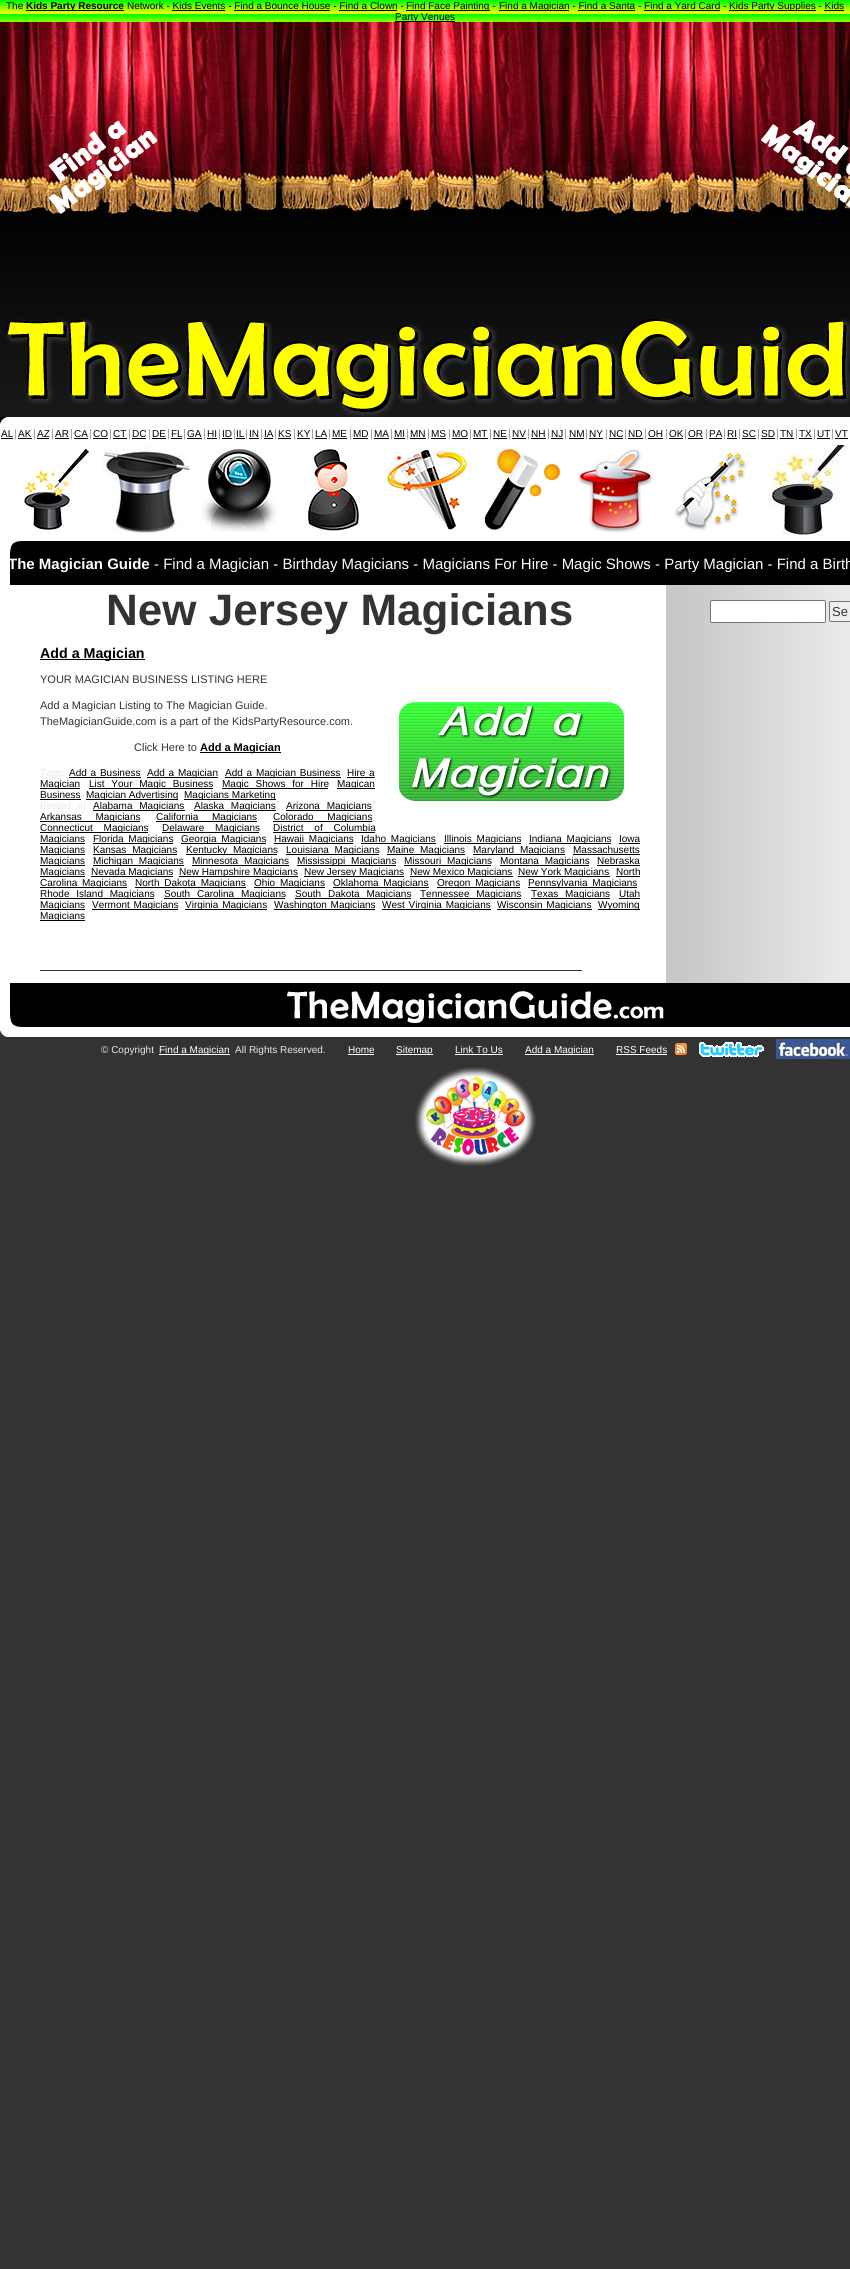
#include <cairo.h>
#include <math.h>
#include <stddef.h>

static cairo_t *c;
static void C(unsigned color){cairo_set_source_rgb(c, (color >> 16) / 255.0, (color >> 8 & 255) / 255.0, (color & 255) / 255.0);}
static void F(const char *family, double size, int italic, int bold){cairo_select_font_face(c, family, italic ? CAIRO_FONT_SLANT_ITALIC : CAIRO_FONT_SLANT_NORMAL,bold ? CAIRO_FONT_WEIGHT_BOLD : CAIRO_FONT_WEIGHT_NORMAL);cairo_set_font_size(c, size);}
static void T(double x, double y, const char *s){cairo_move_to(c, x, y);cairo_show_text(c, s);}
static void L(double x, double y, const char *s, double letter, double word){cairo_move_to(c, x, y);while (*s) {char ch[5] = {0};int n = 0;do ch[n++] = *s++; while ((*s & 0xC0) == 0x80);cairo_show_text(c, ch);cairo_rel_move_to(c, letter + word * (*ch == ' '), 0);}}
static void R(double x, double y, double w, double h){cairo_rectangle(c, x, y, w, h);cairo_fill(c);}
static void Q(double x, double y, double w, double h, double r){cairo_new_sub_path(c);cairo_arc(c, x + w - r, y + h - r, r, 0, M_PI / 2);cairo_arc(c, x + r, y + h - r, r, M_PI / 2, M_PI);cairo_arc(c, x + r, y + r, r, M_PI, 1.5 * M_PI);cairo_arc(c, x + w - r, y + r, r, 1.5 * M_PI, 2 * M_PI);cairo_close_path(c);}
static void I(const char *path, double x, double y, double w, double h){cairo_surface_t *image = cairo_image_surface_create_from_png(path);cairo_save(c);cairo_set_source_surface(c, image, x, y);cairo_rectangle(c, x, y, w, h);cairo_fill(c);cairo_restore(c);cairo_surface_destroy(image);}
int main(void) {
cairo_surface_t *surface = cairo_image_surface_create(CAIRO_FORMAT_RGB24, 850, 2269);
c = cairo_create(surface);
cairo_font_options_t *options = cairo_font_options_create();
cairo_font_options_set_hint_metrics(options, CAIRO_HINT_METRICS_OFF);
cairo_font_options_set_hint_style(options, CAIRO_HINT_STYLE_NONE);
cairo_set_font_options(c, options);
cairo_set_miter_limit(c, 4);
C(0x333333);
cairo_paint(c);
I("1.png",0,22,850,395);
I("2.png",0,0,850,22);
F("Liberation Sans",10,0,0);
C(0x000000);
T(6,9,"The");
R(26,10,98,1);
F("Liberation Sans",10,0,1);
T(26,9,"Kids Party Resource");
F("Liberation Sans",10,0,0);
T(127,9,"Network - Kids Events - Find a Bounce House - Find a Clown -");
R(406,10,84,1);
T(406,9,"Find Face Painting -");
R(499,10,70,1);
T(499,9,"Find a Magician - Find a Santa - Find a Yard Card -");
R(729,10,87,1);
T(729,9,"Kids Party Supplies - Kids");
R(172,10,53,1);
R(234,10,96,1);
R(339,10,58,1);
R(578,10,57,1);
R(644,10,76,1);
R(395,21,60,1);
T(395,20,"Party Venues");
R(824,10,20,1);
I("3.png",48,120,110,94);
I("4.png",761,120,89,88);
I("5.png",6,318,844,99);
C(0xffffff);
R(0,417,850,168);
I("6.png",0,417,7,7);
C(0x000000);
T(1,437,"AL");
R(1,438,12,1);
F("Liberation Sans",11,0,0);
C(0x999999);
T(14,437,"|");
F("Liberation Sans",10,0,0);
C(0x000000);
T(18,437,"AK");
R(18,438,14,1);
F("Liberation Sans",11,0,0);
C(0x999999);
T(33,437,"|");
F("Liberation Sans",10,0,0);
C(0x000000);
T(37,437,"AZ");
R(37,438,12,1);
F("Liberation Sans",11,0,0);
C(0x999999);
T(51,437,"|");
F("Liberation Sans",10,0,0);
C(0x000000);
T(55,437,"AR");
R(55,438,14,1);
F("Liberation Sans",11,0,0);
C(0x999999);
T(70,437,"|");
F("Liberation Sans",10,0,0);
C(0x000000);
T(74,437,"CA");
R(74,438,14,1);
F("Liberation Sans",11,0,0);
C(0x999999);
T(89,437,"|");
F("Liberation Sans",10,0,0);
C(0x000000);
T(93,437,"CO");
R(93,438,15,1);
F("Liberation Sans",11,0,0);
C(0x999999);
T(109,437,"|");
F("Liberation Sans",10,0,0);
C(0x000000);
T(113,437,"CT");
R(113,438,14,1);
F("Liberation Sans",11,0,0);
C(0x999999);
T(128,437,"|");
F("Liberation Sans",10,0,0);
C(0x000000);
T(132,437,"DC");
R(132,438,14,1);
F("Liberation Sans",11,0,0);
C(0x999999);
T(148,437,"|");
F("Liberation Sans",10,0,0);
C(0x000000);
T(152,437,"DE");
R(152,438,14,1);
F("Liberation Sans",11,0,0);
C(0x999999);
T(167,437,"|");
F("Liberation Sans",10,0,0);
C(0x000000);
T(171,437,"FL");
R(171,438,11,1);
F("Liberation Sans",11,0,0);
C(0x999999);
T(183,437,"|");
F("Liberation Sans",10,0,0);
C(0x000000);
T(187,437,"GA");
R(187,438,15,1);
F("Liberation Sans",11,0,0);
C(0x999999);
T(203,437,"|");
F("Liberation Sans",10,0,0);
C(0x000000);
T(207,437,"HI");
R(207,438,10,1);
F("Liberation Sans",11,0,0);
C(0x999999);
T(218,437,"|");
F("Liberation Sans",10,0,0);
C(0x000000);
T(222,437,"ID");
R(222,438,10,1);
F("Liberation Sans",11,0,0);
C(0x999999);
T(233,437,"|");
F("Liberation Sans",10,0,0);
C(0x000000);
T(236,437,"IL");
R(236,438,9,1);
F("Liberation Sans",11,0,0);
C(0x999999);
T(245,437,"|");
F("Liberation Sans",10,0,0);
C(0x000000);
T(249,437,"IN");
R(249,438,10,1);
F("Liberation Sans",11,0,0);
C(0x999999);
T(260,437,"|");
F("Liberation Sans",10,0,0);
C(0x000000);
T(264,437,"IA");
R(264,438,9,1);
F("Liberation Sans",11,0,0);
C(0x999999);
T(274,437,"|");
F("Liberation Sans",10,0,0);
C(0x000000);
T(278,437,"KS");
R(278,438,13,1);
F("Liberation Sans",11,0,0);
C(0x999999);
T(293,437,"|");
F("Liberation Sans",10,0,0);
C(0x000000);
T(297,437,"KY");
R(297,438,13,1);
F("Liberation Sans",11,0,0);
C(0x999999);
T(311,437,"|");
F("Liberation Sans",10,0,0);
C(0x000000);
T(315,437,"LA");
R(315,438,12,1);
F("Liberation Sans",11,0,0);
C(0x999999);
T(328,437,"|");
F("Liberation Sans",10,0,0);
C(0x000000);
T(332,437,"ME");
R(332,438,15,1);
F("Liberation Sans",11,0,0);
C(0x999999);
T(349,437,"|");
F("Liberation Sans",10,0,0);
C(0x000000);
T(353,437,"MD");
R(353,438,15,1);
F("Liberation Sans",11,0,0);
C(0x999999);
T(370,437,"|");
F("Liberation Sans",10,0,0);
C(0x000000);
T(374,437,"MA");
R(374,438,15,1);
F("Liberation Sans",11,0,0);
C(0x999999);
T(390,437,"|");
F("Liberation Sans",10,0,0);
C(0x000000);
T(394,437,"MI");
R(394,438,11,1);
F("Liberation Sans",11,0,0);
C(0x999999);
T(406,437,"|");
F("Liberation Sans",10,0,0);
C(0x000000);
T(410,437,"MN");
R(410,438,16,1);
F("Liberation Sans",11,0,0);
C(0x999999);
T(427,437,"|");
F("Liberation Sans",10,0,0);
C(0x000000);
T(431,437,"MS");
R(431,438,15,1);
F("Liberation Sans",11,0,0);
C(0x999999);
T(448,437,"|");
F("Liberation Sans",10,0,0);
C(0x000000);
T(452,437,"MO");
R(452,438,16,1);
F("Liberation Sans",11,0,0);
C(0x999999);
T(469,437,"|");
F("Liberation Sans",10,0,0);
C(0x000000);
T(473,437,"MT");
R(473,438,15,1);
F("Liberation Sans",11,0,0);
C(0x999999);
T(489,437,"|");
F("Liberation Sans",10,0,0);
C(0x000000);
T(493,437,"NE");
R(493,438,14,1);
F("Liberation Sans",11,0,0);
C(0x999999);
T(508,437,"|");
F("Liberation Sans",10,0,0);
C(0x000000);
T(512,437,"NV");
R(512,438,14,1);
F("Liberation Sans",11,0,0);
C(0x999999);
T(527,437,"|");
F("Liberation Sans",10,0,0);
C(0x000000);
T(531,437,"NH");
R(531,438,15,1);
F("Liberation Sans",11,0,0);
C(0x999999);
T(547,437,"|");
F("Liberation Sans",10,0,0);
C(0x000000);
T(551,437,"NJ");
R(551,438,12,1);
F("Liberation Sans",11,0,0);
C(0x999999);
T(564,437,"|");
F("Liberation Sans",10,0,0);
C(0x000000);
T(569,437,"NM");
R(569,438,15,1);
F("Liberation Sans",11,0,0);
C(0x999999);
T(585,437,"|");
F("Liberation Sans",10,0,0);
C(0x000000);
T(589,437,"NY");
R(589,438,14,1);
F("Liberation Sans",11,0,0);
C(0x999999);
T(605,437,"|");
F("Liberation Sans",10,0,0);
C(0x000000);
T(609,437,"NC");
R(609,438,14,1);
F("Liberation Sans",11,0,0);
C(0x999999);
T(624,437,"|");
F("Liberation Sans",10,0,0);
C(0x000000);
T(628,437,"ND");
R(628,438,15,1);
F("Liberation Sans",11,0,0);
C(0x999999);
T(644,437,"|");
F("Liberation Sans",10,0,0);
C(0x000000);
T(648,437,"OH");
R(648,438,15,1);
F("Liberation Sans",11,0,0);
C(0x999999);
T(665,437,"|");
F("Liberation Sans",10,0,0);
C(0x000000);
T(669,437,"OK");
R(669,438,14,1);
F("Liberation Sans",11,0,0);
C(0x999999);
T(684,437,"|");
F("Liberation Sans",10,0,0);
C(0x000000);
T(688,437,"OR");
R(688,438,15,1);
F("Liberation Sans",11,0,0);
C(0x999999);
T(705,437,"|");
F("Liberation Sans",10,0,0);
C(0x000000);
T(709,437,"PA");
R(709,438,13,1);
F("Liberation Sans",11,0,0);
C(0x999999);
T(723,437,"|");
F("Liberation Sans",10,0,0);
C(0x000000);
T(727,437,"RI");
R(727,438,10,1);
F("Liberation Sans",11,0,0);
C(0x999999);
T(738,437,"|");
F("Liberation Sans",10,0,0);
C(0x000000);
T(742,437,"SC");
R(742,438,14,1);
F("Liberation Sans",11,0,0);
C(0x999999);
T(757,437,"|");
F("Liberation Sans",10,0,0);
C(0x000000);
T(761,437,"SD");
R(761,438,14,1);
F("Liberation Sans",11,0,0);
C(0x999999);
T(776,437,"|");
F("Liberation Sans",10,0,0);
C(0x000000);
T(780,437,"TN");
R(780,438,14,1);
F("Liberation Sans",11,0,0);
C(0x999999);
T(795,437,"|");
F("Liberation Sans",10,0,0);
C(0x000000);
T(799,437,"TX");
R(799,438,13,1);
F("Liberation Sans",11,0,0);
C(0x999999);
T(813,437,"|");
F("Liberation Sans",10,0,0);
C(0x000000);
T(817,437,"UT");
R(817,438,13,1);
F("Liberation Sans",11,0,0);
C(0x999999);
T(831,437,"|");
F("Liberation Sans",10,0,0);
C(0x000000);
T(835,437,"VT");
R(835,438,13,1);
I("7.png",24,448,65,82);
I("8.png",102,445,88,88);
I("9.png",202,448,75,84);
I("10.png",308,449,51,82);
I("11.png",387,450,80,80);
I("12.png",484,449,77,81);
I("13.png",577,449,76,84);
I("14.png",674,452,73,79);
I("15.png",759,445,90,90);
I("16.png",10,541,840,44);
F("Liberation Sans",15,0,1);
C(0xffffff);
T(8,569,"The Magician Guide");
F("Liberation Sans",15,0,0);
T(154,569,"- Find a Magician - Birthday Magicians - Magicians For Hire - Magic Shows - Party Magician - Find a Birth");
R(0,585,666,398);
I("17.png",666,585,184,398);
F("Liberation Sans",44,0,1);
C(0x333333);
T(106,625,"New Jersey Magicians");
C(0x000000);
R(40,659,105,1);
F("Liberation Sans",14.25,0,1);
T(40,658,"Add a Magician");
F("Liberation Sans",11,0,0);
C(0x333333);
T(40,683,"YOUR MAGICIAN BUSINESS LISTING HERE");
I("18.png",399,702,225,99);
T(40,709,"Add a Magician Listing to The Magician Guide.");
T(40,725,"TheMagicianGuide.com is a part of the KidsPartyResource.com.");
T(134,751,"Click Here to");
C(0x000000);
R(200,752,81,1);
F("Liberation Sans",11,0,1);
T(200,751,"Add a Magician");
F("Liberation Sans",10,0,0);
C(0xe8e8e8);
T(40,776,"Tags:");
C(0x000000);
L(69,776,"Add a Business",0,1);
R(69,777,72,1);
R(147,777,71,1);
L(147,776,"Add a Magician",0,1);
C(0xe8e8e8);
T(218,776,",");
C(0x000000);
R(225,777,116,1);
L(225,776,"Add a Magician Business",0,1);
L(347,776,"Hire a",0,1);
R(347,777,28,1);
R(40,788,40,1);
T(40,787,"Magician");
C(0xe8e8e8);
T(80,787,",");
C(0x000000);
R(89,788,124,1);
L(89,787,"List Your Magic Business",0,4);
R(222,788,106,1);
L(222,787,"Magic Shows for Hire",0,4);
C(0xe8e8e8);
T(328,787,",");
C(0x000000);
R(337,788,38,1);
T(337,787,"Magican");
T(40,798,"Business");
R(40,799,41,1);
R(86,799,92,1);
T(86,798,"Magician Advertising");
R(184,799,92,1);
T(184,798,"Magicians Marketing");
C(0xe8e8e8);
L(40,809,"Posted in",0,4);
C(0x000000);
R(93,810,92,1);
L(93,809,"Alabama Magicians",0,4);
R(194,810,82,1);
L(194,809,"Alaska Magicians",0,4);
R(286,810,86,1);
L(286,809,"Arizona Magicians",0,4);
C(0xe8e8e8);
T(372,809,",");
C(0x000000);
R(40,821,100,1);
L(40,820,"Arkansas Magicians",0,11);
C(0xe8e8e8);
T(140,820,",");
C(0x000000);
R(156,821,101,1);
L(156,820,"California Magicians",0,11);
C(0xe8e8e8);
T(257,820,",");
C(0x000000);
R(273,821,99,1);
L(273,820,"Colorado Magicians",0,11);
C(0xe8e8e8);
T(372,820,",");
C(0x000000);
R(40,832,108,1);
L(40,831,"Connecticut Magicians",0,8);
C(0xe8e8e8);
T(148,831,",");
C(0x000000);
R(162,832,97,1);
L(162,831,"Delaware Magicians",0,8);
L(273,831,"District of Columbia",0,8);
R(273,832,102,1);
R(40,843,45,1);
T(40,842,"Magicians");
C(0xe8e8e8);
T(85,842,",");
C(0x000000);
R(93,843,80,1);
L(93,842,"Florida Magicians",0,2);
C(0xe8e8e8);
T(173,842,",");
C(0x000000);
R(181,843,85,1);
L(181,842,"Georgia Magicians",0,2);
C(0xe8e8e8);
T(266,842,",");
C(0x000000);
R(274,843,79,1);
L(274,842,"Hawaii Magicians",0,2);
R(361,843,75,1);
L(361,842,"Idaho Magicians",0,2);
C(0xe8e8e8);
T(436,842,",");
C(0x000000);
R(444,843,77,1);
L(444,842,"Illinois Magicians",0,2);
C(0xe8e8e8);
T(521,842,",");
C(0x000000);
R(529,843,82,1);
L(529,842,"Indiana Magicians",0,2);
C(0xe8e8e8);
T(611,842,",");
C(0x000000);
T(619,842,"Iowa");
R(619,843,21,1);
R(40,854,45,1);
T(40,853,"Magicians");
C(0xe8e8e8);
T(85,853,",");
C(0x000000);
R(93,854,84,1);
L(93,853,"Kansas Magicians",0,3);
C(0xe8e8e8);
T(177,853,",");
C(0x000000);
R(186,854,91,1);
L(186,853,"Kentucky Magicians",0,3);
C(0xe8e8e8);
T(277,853,",");
C(0x000000);
R(286,854,93,1);
L(286,853,"Louisiana Magicians",0,3);
C(0xe8e8e8);
T(379,853,",");
C(0x000000);
R(387,854,78,1);
L(387,853,"Maine Magicians",0,3);
C(0xe8e8e8);
T(465,853,",");
C(0x000000);
R(473,854,92,1);
L(473,853,"Maryland Magicians",0,3);
C(0xe8e8e8);
T(565,853,",");
C(0x000000);
T(573,853,"Massachusetts");
R(573,854,67,1);
R(40,865,45,1);
T(40,864,"Magicians");
C(0xe8e8e8);
T(85,864,",");
C(0x000000);
R(93,865,91,1);
L(93,864,"Michigan Magicians",0,3);
R(192,865,97,1);
L(192,864,"Minnesota Magicians",0,3);
R(297,865,99,1);
L(297,864,"Mississippi Magicians",0,3);
R(404,865,87,1);
L(404,864,"Missouri Magicians",0,3);
R(500,865,89,1);
L(500,864,"Montana Magicians",0,3);
C(0xe8e8e8);
T(589,864,",");
C(0x000000);
T(597,864,"Nebraska");
R(597,865,43,1);
R(40,876,45,1);
T(40,875,"Magicians");
C(0xe8e8e8);
T(85,875,",");
C(0x000000);
R(91,876,82,1);
T(91,875,"Nevada Magicians");
C(0xe8e8e8);
T(173,875,",");
C(0x000000);
R(179,876,119,1);
T(179,875,"New Hampshire Magicians");
C(0xe8e8e8);
T(298,875,",");
C(0x000000);
R(304,876,100,1);
T(304,875,"New Jersey Magicians");
C(0xe8e8e8);
T(404,875,",");
C(0x000000);
R(410,876,103,1);
T(410,875,"New Mexico Magicians");
R(518,876,92,1);
T(518,875,"New York Magicians");
C(0xe8e8e8);
T(610,875,",");
C(0x000000);
T(616,875,"North");
R(616,876,24,1);
R(40,887,87,1);
L(40,886,"Carolina Magicians",0,2);
C(0xe8e8e8);
T(127,886,",");
C(0x000000);
R(135,887,111,1);
L(135,886,"North Dakota Magicians",0,2);
C(0xe8e8e8);
T(246,886,",");
C(0x000000);
R(254,887,71,1);
L(254,886,"Ohio Magicians",0,2);
C(0xe8e8e8);
T(325,886,",");
C(0x000000);
R(333,887,96,1);
L(333,886,"Oklahoma Magicians",0,2);
R(437,887,83,1);
L(437,886,"Oregon Magicians",0,2);
C(0xe8e8e8);
T(520,886,",");
C(0x000000);
R(528,887,109,1);
L(528,886,"Pennsylvania Magicians",0,2);
C(0xe8e8e8);
T(637,886,",");
C(0x000000);
R(40,898,114,1);
L(40,897,"Rhode Island Magicians",0,4);
R(164,898,121,1);
L(164,897,"South Carolina Magicians",0,4);
C(0xe8e8e8);
T(285,897,",");
C(0x000000);
R(295,898,116,1);
L(295,897,"South Dakota Magicians",0,4);
R(420,898,101,1);
L(420,897,"Tennessee Magicians",0,4);
C(0xe8e8e8);
T(521,897,",");
C(0x000000);
R(531,898,79,1);
L(531,897,"Texas Magicians",0,4);
T(619,897,"Utah");
R(619,898,21,1);
R(40,909,45,1);
T(40,908,"Magicians");
C(0xe8e8e8);
T(85,908,",");
C(0x000000);
R(92,909,86,1);
L(92,908,"Vermont Magicians",0,1);
C(0xe8e8e8);
T(178,908,",");
C(0x000000);
R(185,909,82,1);
L(185,908,"Virginia Magicians",0,1);
C(0xe8e8e8);
T(267,908,",");
C(0x000000);
R(274,909,101,1);
L(274,908,"Washington Magicians",0,1);
C(0xe8e8e8);
T(375,908,",");
C(0x000000);
R(382,909,109,1);
L(382,908,"West Virginia Magicians",0,1);
R(497,909,95,1);
L(497,908,"Wisconsin Magicians",0,1);
R(598,909,42,1);
T(598,908,"Wyoming");
R(40,920,45,1);
T(40,919,"Magicians");
C(0x333333);
R(40,970,542,1);
C(0xffffff);
Q(710.5,600.5,115,22,1.5);
cairo_fill_preserve(c);
C(0x767676);
cairo_set_line_width(c,1);
cairo_stroke(c);
C(0xefefef);
Q(829.5,601.5,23,20,1.5);
cairo_fill_preserve(c);
C(0x767676);
cairo_stroke(c);
F("Liberation Sans",13,0,0);
C(0x333333);
T(832,616,"Se");
C(0xffffff);
R(0,983,10,44);
I("19.png",10,983,840,44);
I("20.png",0,1027,850,10);
F("Liberation Sans",10,0,0);
C(0xe8e8e8);
T(101,1053,"© Copyright");
C(0xffffff);
R(159,1054,71,1);
T(159,1053,"Find a Magician");
C(0xe8e8e8);
T(235,1053,"All Rights Reserved.");
C(0xffffff);
T(348,1053,"Home");
R(348,1054,26,1);
R(396,1054,37,1);
T(396,1053,"Sitemap");
T(455,1053,"Link To Us");
R(455,1054,48,1);
R(525,1054,69,1);
T(525,1053,"Add a Magician");
T(616,1053,"RSS Feeds");
R(616,1054,51,1);
I("21.png",675,1043,12,12);
I("22.png",699,1042,65,15);
I("23.png",776,1039,74,20);
I("24.png",415,1067,121,99);
cairo_surface_write_to_png(surface, "o.png");
cairo_font_options_destroy(options);
cairo_destroy(c);
cairo_surface_destroy(surface);
return 0;
}
